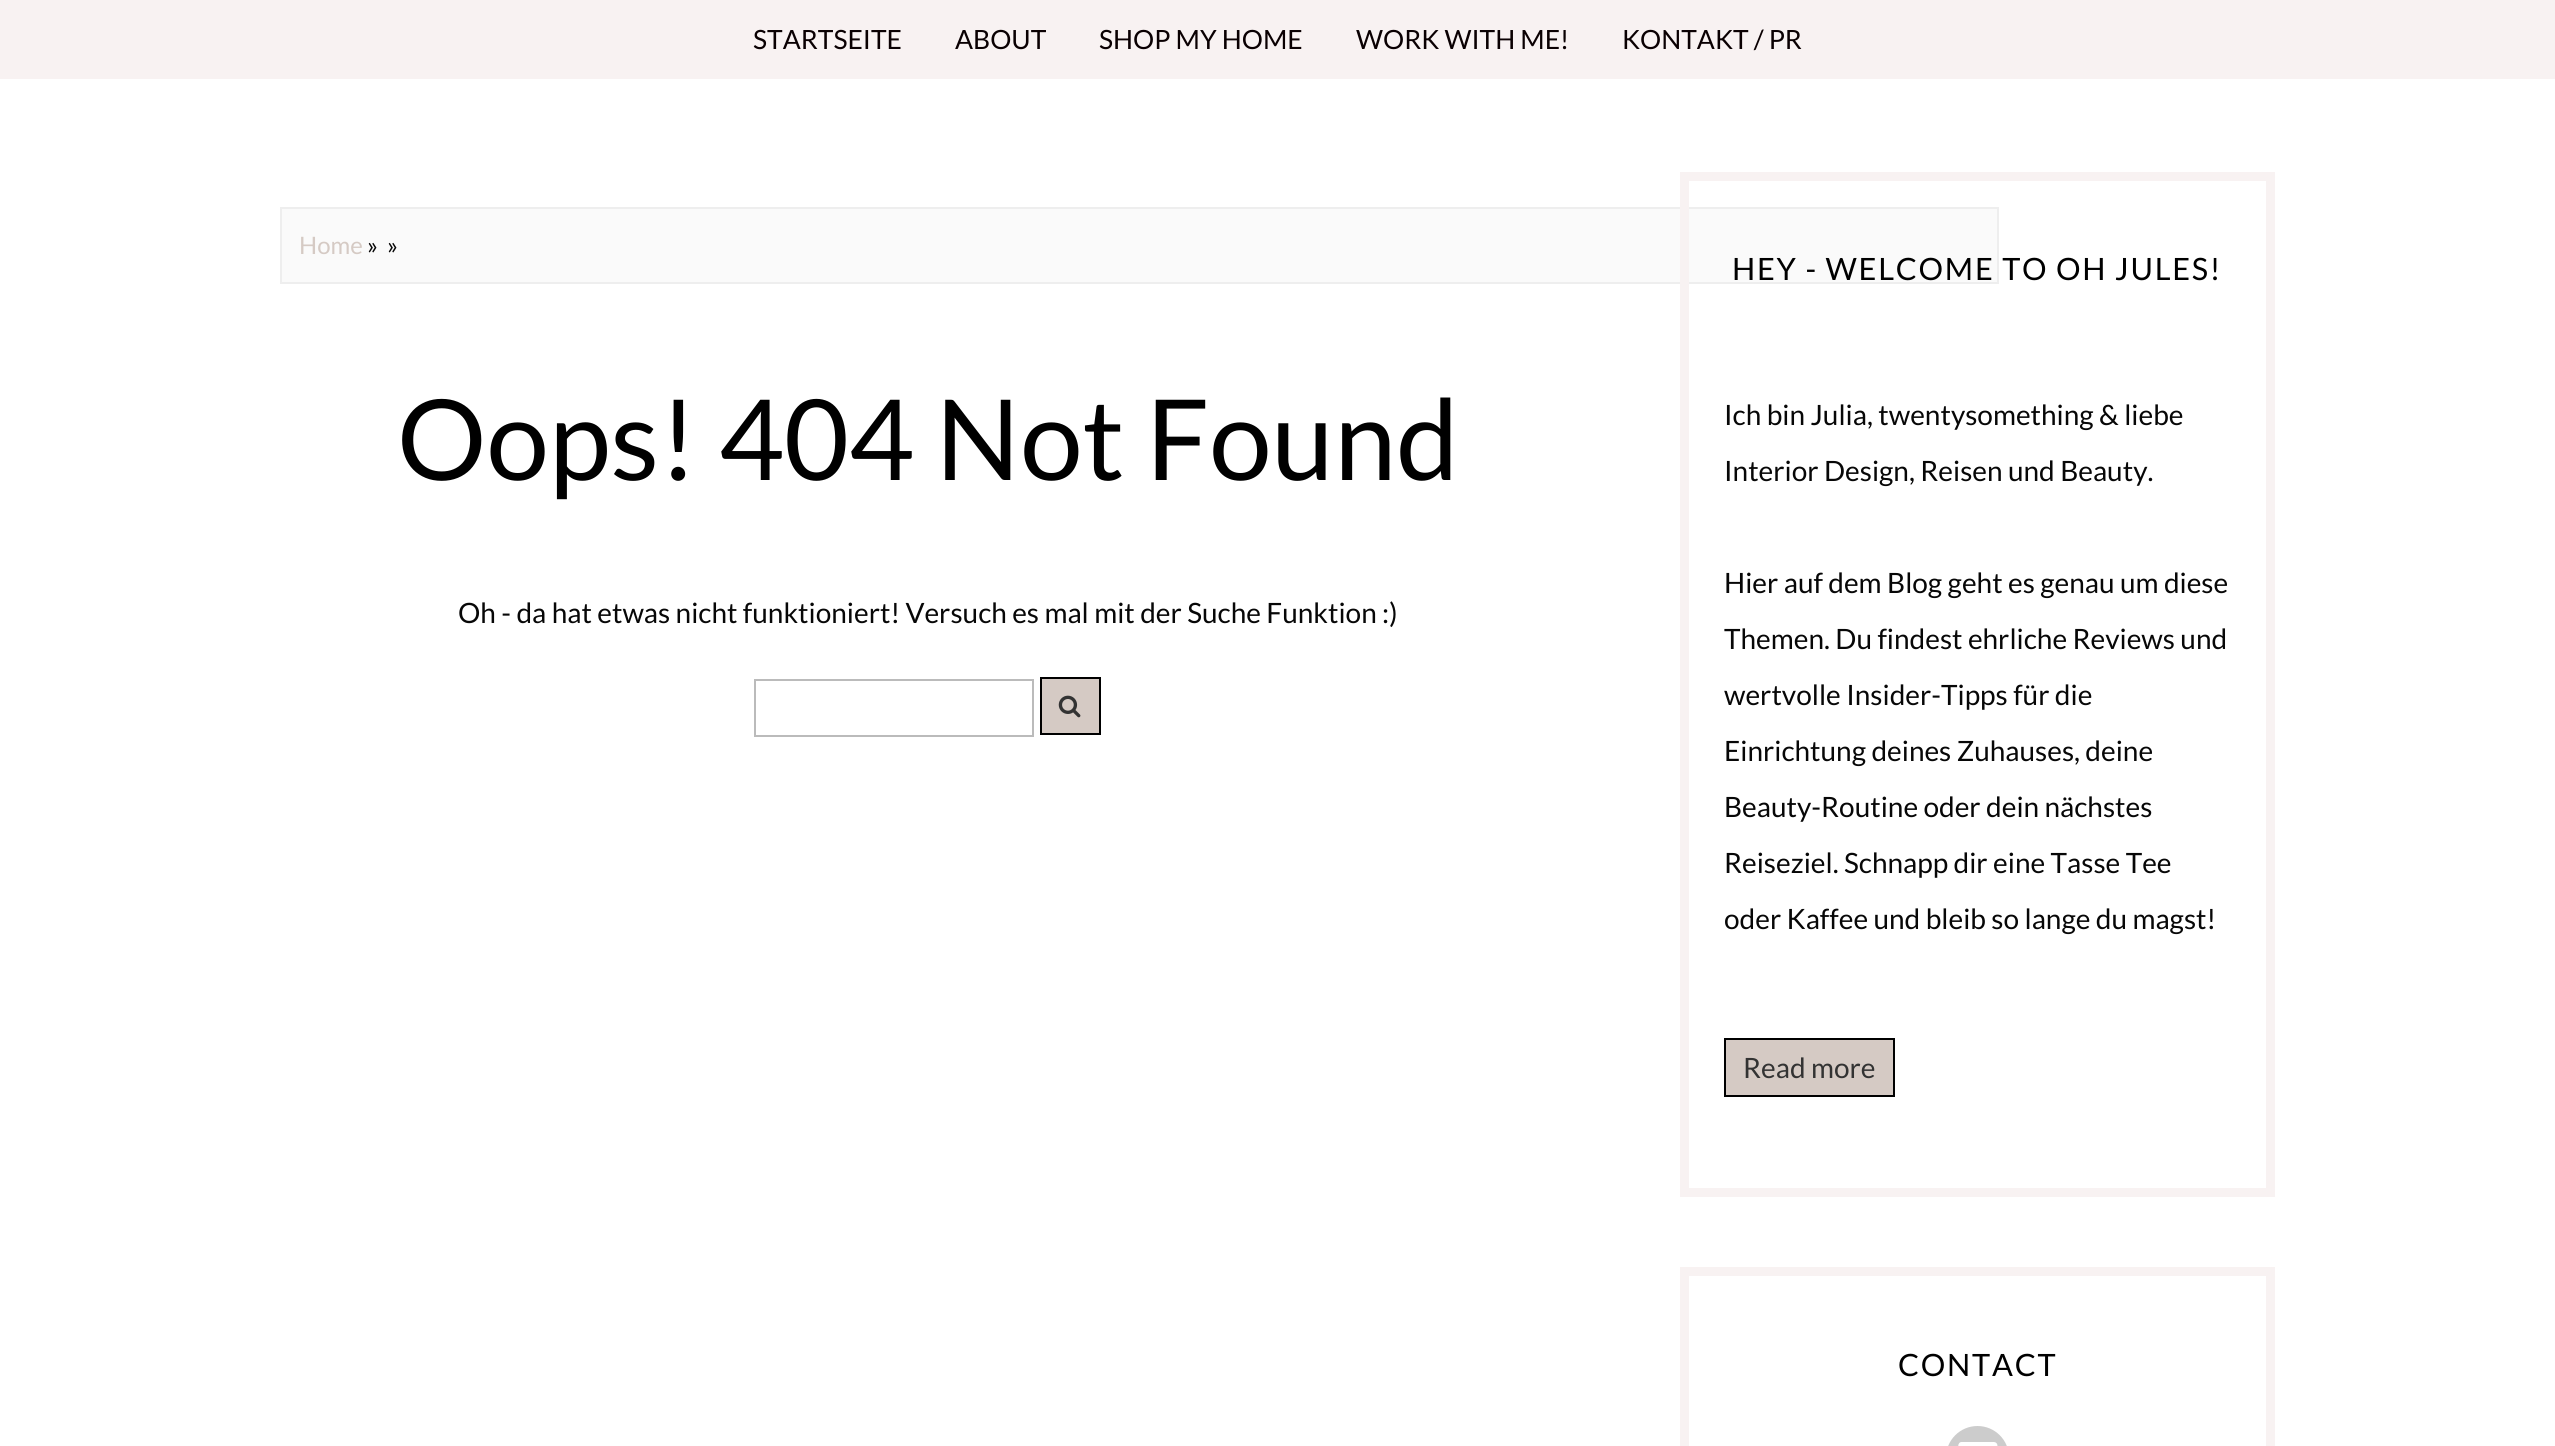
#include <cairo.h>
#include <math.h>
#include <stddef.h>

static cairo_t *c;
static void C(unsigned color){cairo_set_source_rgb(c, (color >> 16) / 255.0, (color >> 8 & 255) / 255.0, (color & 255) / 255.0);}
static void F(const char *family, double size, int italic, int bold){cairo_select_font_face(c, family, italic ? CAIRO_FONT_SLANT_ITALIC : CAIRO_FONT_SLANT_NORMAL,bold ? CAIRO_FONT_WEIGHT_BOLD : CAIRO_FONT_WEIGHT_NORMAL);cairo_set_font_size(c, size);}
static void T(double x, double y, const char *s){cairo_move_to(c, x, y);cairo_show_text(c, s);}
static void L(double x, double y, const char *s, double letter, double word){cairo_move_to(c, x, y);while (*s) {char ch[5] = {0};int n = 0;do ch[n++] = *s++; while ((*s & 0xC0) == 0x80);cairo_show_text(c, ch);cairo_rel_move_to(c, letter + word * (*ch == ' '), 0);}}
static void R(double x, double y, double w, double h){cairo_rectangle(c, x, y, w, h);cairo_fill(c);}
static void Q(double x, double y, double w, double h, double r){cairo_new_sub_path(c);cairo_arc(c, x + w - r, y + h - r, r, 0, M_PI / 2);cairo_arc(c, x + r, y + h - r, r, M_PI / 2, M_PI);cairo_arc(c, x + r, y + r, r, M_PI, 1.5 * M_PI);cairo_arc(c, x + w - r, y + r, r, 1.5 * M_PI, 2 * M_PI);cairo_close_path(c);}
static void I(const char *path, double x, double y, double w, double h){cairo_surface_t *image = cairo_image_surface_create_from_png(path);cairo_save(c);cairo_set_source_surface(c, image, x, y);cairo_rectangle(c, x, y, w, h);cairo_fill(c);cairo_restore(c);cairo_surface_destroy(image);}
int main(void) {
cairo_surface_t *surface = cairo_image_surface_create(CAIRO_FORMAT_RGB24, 2555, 1446);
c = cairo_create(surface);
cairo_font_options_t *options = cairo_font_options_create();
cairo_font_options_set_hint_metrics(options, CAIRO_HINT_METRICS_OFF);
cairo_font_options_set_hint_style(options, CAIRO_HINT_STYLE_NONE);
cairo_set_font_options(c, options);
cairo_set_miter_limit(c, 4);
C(0xffffff);
cairo_paint(c);
C(0xf8f2f2);
R(0,0,2555,79);
F("Lato",26.5,0,0);
C(0x0a0002);
T(753,49,"STARTSEITE");
T(955,49,"ABOUT");
T(1099,49,"SHOP MY HOME");
T(1356,49,"WORK WITH ME!");
T(1622,49,"KONTAKT / PR");
C(0xfafafa);
cairo_rectangle(c,281,208,1717,75);
cairo_fill_preserve(c);
C(0xeeeeee);
cairo_stroke(c);
F("Lato",24,0,0);
C(0xd5cac4);
T(299,254,"Home");
C(0x070707);
T(367,254,"»");
T(387,254,"»");
F("Lato",112,0,0);
C(0x000000);
T(397,480,"Oops! 404 Not Found");
F("Lato",28,0,0);
C(0x070707);
T(458,623,"Oh - da hat etwas nicht funktioniert! Versuch es mal mit der Suche Funktion :)");
cairo_rectangle(c,755,680,278,56);
C(0xbbbbbb);
cairo_stroke(c);
C(0xd5cac4);
cairo_rectangle(c,1041,678,59,56);
cairo_fill_preserve(c);
C(0x000000);
cairo_stroke(c);
I("1.png",1058,695,23,23);
cairo_rectangle(c,1684.5,176.5,586,1016);
C(0xf8f2f2);
cairo_set_line_width(c,9);
cairo_stroke(c);
F("Lato",30.75,0,0);
C(0x000000);
L(1732,280,"HEY - WELCOME TO OH JULES!",1.75,0);
F("Lato",28,0,0);
C(0x070707);
T(1724,425,"Ich bin Julia, twentysomething & liebe");
T(1724,481,"Interior Design, Reisen und Beauty.");
T(1724,593,"Hier auf dem Blog geht es genau um diese");
T(1724,649,"Themen. Du findest ehrliche Reviews und");
T(1724,705,"wertvolle Insider-Tipps für die");
T(1724,761,"Einrichtung deines Zuhauses, deine");
T(1724,817,"Beauty-Routine oder dein nächstes");
T(1724,873,"Reiseziel. Schnapp dir eine Tasse Tee");
T(1724,929,"oder Kaffee und bleib so lange du magst!");
C(0xd5cac4);
cairo_rectangle(c,1725,1039,169,57);
cairo_fill_preserve(c);
C(0x000000);
cairo_set_line_width(c,2);
cairo_stroke(c);
C(0x333333);
T(1743,1078,"Read more");
cairo_rectangle(c,1684.5,1271.5,586,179);
C(0xf8f2f2);
cairo_set_line_width(c,9);
cairo_stroke(c);
F("Lato",30.75,0,0);
C(0x000000);
L(1898,1376,"CONTACT",1.75,0);
C(0xcccccc);
Q(1946,1426,63,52,31.5);
cairo_fill(c);
I("2.png",1958,1442,40,4);
cairo_surface_write_to_png(surface, "o.png");
cairo_font_options_destroy(options);
cairo_destroy(c);
cairo_surface_destroy(surface);
return 0;
}
